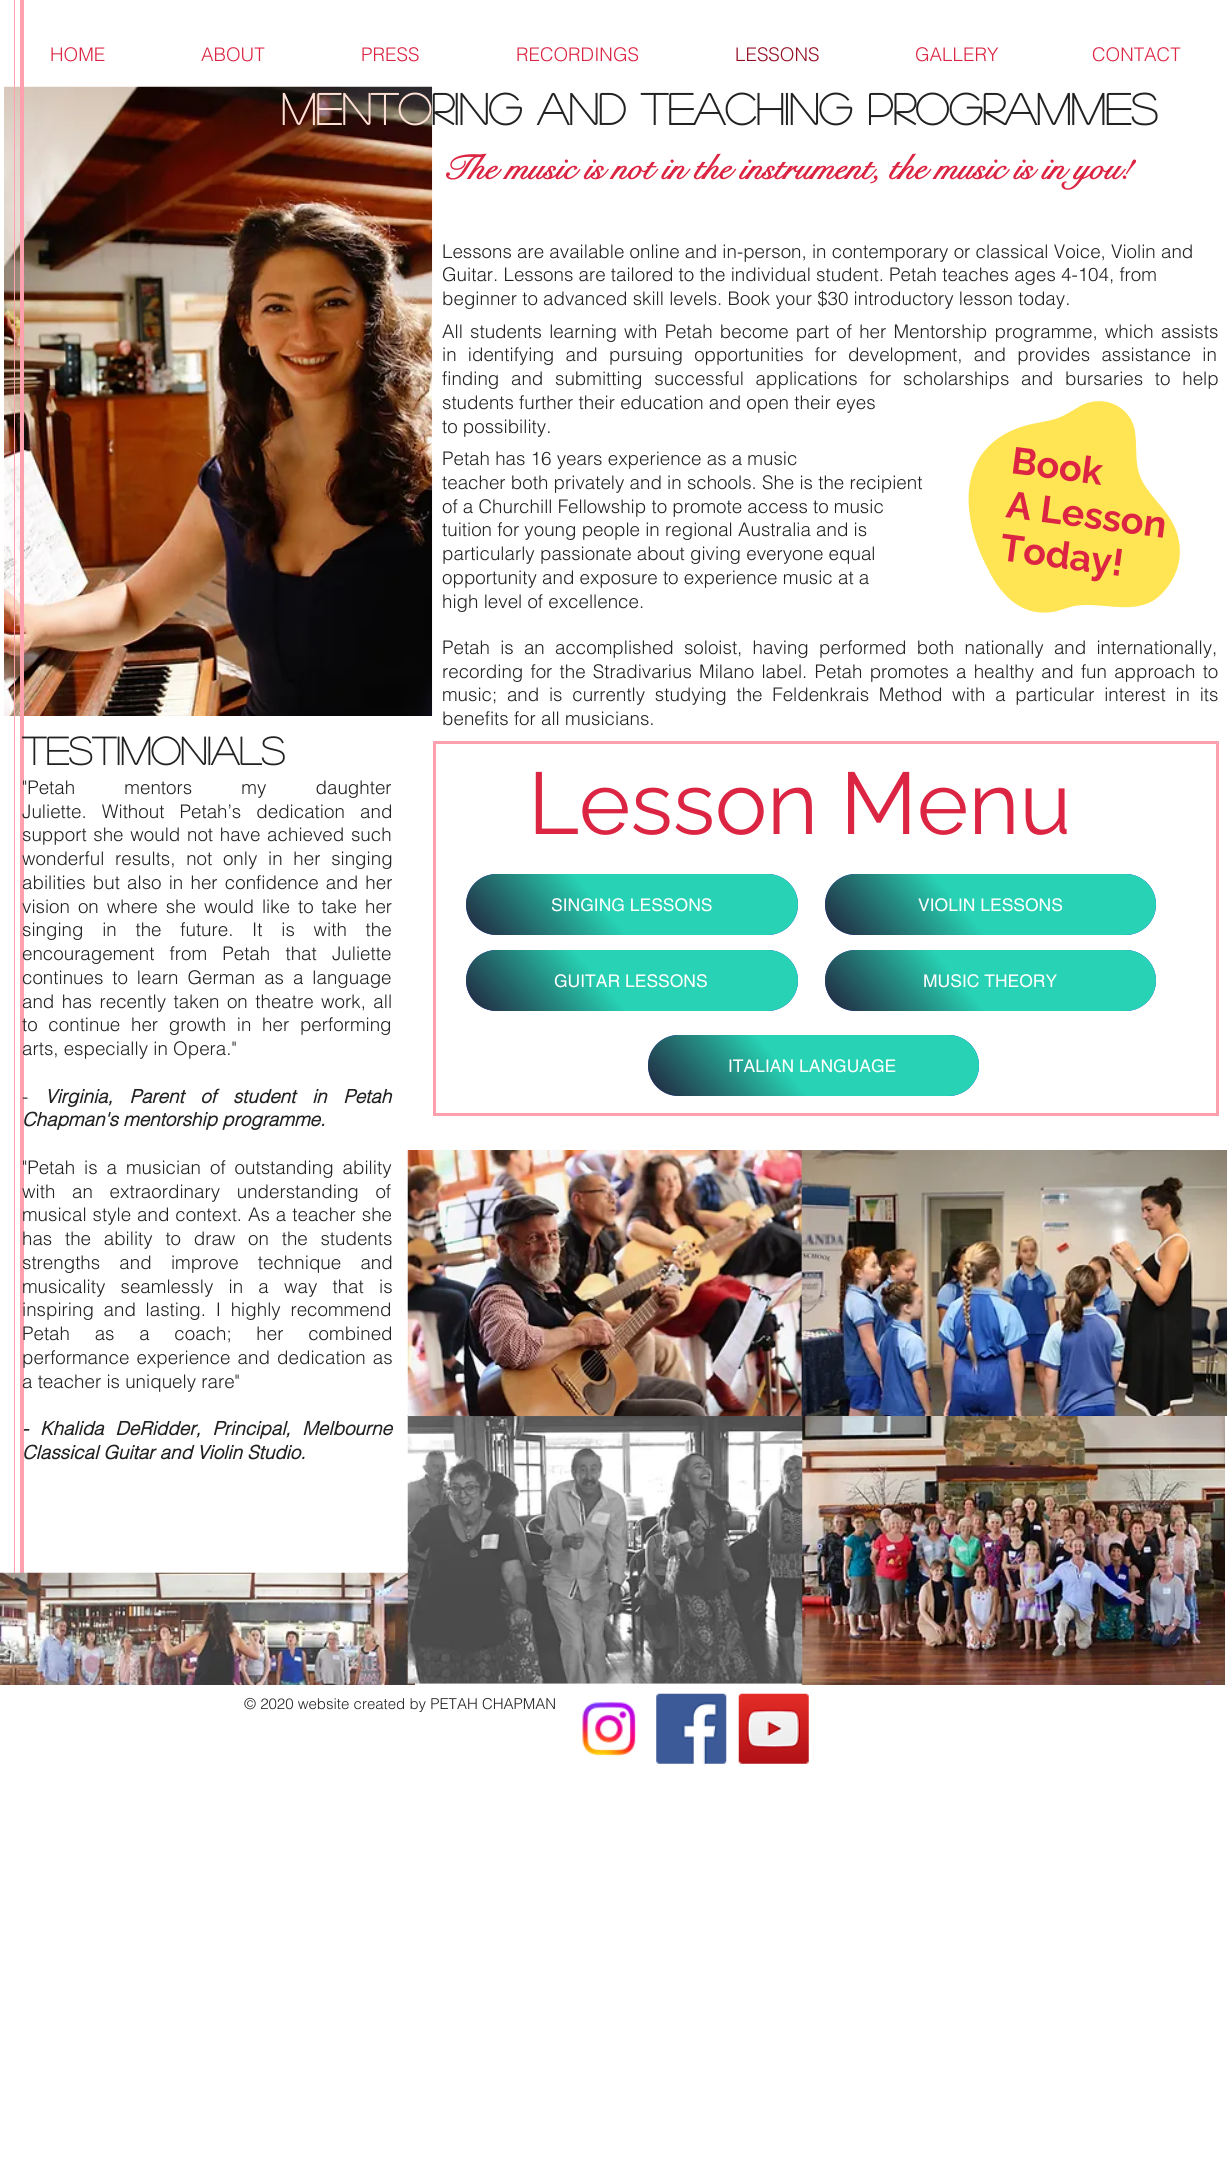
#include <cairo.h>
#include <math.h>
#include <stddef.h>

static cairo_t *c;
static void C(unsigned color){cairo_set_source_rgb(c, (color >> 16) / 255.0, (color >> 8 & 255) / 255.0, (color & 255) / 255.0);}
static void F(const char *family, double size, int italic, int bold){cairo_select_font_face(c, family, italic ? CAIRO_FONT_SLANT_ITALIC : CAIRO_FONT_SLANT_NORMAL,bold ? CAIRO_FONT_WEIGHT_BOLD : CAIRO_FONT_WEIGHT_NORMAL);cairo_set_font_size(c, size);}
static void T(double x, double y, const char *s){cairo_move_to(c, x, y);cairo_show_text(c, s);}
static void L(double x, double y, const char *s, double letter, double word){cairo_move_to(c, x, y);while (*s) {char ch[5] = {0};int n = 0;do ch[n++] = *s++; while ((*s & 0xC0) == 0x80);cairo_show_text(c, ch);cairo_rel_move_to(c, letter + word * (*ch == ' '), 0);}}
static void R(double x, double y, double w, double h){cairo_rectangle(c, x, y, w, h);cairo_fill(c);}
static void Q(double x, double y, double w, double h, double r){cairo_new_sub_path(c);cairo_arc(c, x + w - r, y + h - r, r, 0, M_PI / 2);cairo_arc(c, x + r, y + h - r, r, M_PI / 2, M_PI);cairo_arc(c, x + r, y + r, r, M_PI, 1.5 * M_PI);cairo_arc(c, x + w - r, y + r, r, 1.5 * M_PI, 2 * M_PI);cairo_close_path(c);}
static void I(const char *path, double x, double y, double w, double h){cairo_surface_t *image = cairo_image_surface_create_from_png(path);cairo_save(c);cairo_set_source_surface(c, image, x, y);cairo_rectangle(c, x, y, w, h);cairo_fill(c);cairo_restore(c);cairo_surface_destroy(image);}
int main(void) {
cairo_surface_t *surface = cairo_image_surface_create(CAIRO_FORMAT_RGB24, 1228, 2179);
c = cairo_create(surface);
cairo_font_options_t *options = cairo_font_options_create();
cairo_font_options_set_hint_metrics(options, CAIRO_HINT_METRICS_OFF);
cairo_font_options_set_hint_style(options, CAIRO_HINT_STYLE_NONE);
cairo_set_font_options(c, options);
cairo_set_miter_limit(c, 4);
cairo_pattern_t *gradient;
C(0xffffff);
cairo_paint(c);
F("helvetica Light",18.75,0,0);
C(0xdb2542);
T(50,61,"HOME");
T(201,61,"ABOUT");
T(361,61,"PRESS");
T(516,61,"RECORDINGS");
C(0x940f24);
T(735,61,"LESSONS");
C(0xdb2542);
T(915,61,"GALLERY");
T(1092,61,"CONTACT");
I("1.png",4,86,429,630);
C(0xffa0af);
R(20,0,4,1573);
R(14,0,1,1573);
F("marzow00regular",43.75,0,1);
C(0xffe0d5);
T(281,125,"Mento");
C(0x222222);
T(431,125,"ring and teaching programmes");
F("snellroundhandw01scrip",35,0,1);
C(0xdb2542);
T(442,179,"The music is not in the instrument, the music is in you!");
F("helvetica Light",18.75,0,0);
C(0x222222);
T(442,258,"Lessons are available online and in-person, in contemporary or classical Voice, Violin and");
T(442,281,"Guitar. Lessons are tailored to the individual student. Petah teaches ages 4-104, from");
T(442,305,"beginner to advanced skill levels. Book your $30 introductory lesson today.");
L(442,338,"All students learning with Petah become part of her Mentorship programme, which assists",0,2);
L(442,361,"in identifying and pursuing opportunities for development, and provides assistance in",0,6);
L(442,385,"finding and submitting successful applications for scholarships and bursaries to help",0,6.5);
T(442,409,"students further their education and open their eyes");
T(442,433,"to possibility.");
T(442,465,"Petah has 16 years experience as a music");
T(442,489,"teacher both privately and in schools. She is the recipient");
T(442,513,"of a Churchill Fellowship to promote access to music");
T(442,536,"tuition for young people in regional Australia and is");
T(442,560,"particularly passionate about giving everyone equal");
T(442,584,"opportunity and exposure to experience music at a");
T(442,608,"high level of excellence.");
C(0xffe453);
cairo_new_path(c);
cairo_move_to(c,982,454);
cairo_curve_to(c,958,487,970,536,988,569);
cairo_curve_to(c,998,590,1018,617,1052,612);
cairo_curve_to(c,1059,611,1066,608,1074,606);
cairo_curve_to(c,1098,602,1124,612,1146,604);
cairo_curve_to(c,1155,601,1161,595,1166,589);
cairo_curve_to(c,1183,568,1184,542,1171,520);
cairo_curve_to(c,1162,505,1146,492,1140,476);
cairo_curve_to(c,1134,461,1138,443,1134,427);
cairo_curve_to(c,1129,408,1106,394,1082,405);
cairo_curve_to(c,1073,410,1065,416,1055,419);
cairo_curve_to(c,1045,422,1034,423,1024,426);
cairo_curve_to(c,1004,432,991,442,982,454);
cairo_close_path(c);
cairo_fill(c);
F("Raleway",37.5,0,1);
C(0xdb2542);
cairo_save(c);
cairo_translate(c,1010,473);
cairo_rotate(c,7.5 * M_PI / 180);
T(0,0,"Book");
cairo_restore(c);
cairo_save(c);
cairo_translate(c,1005,517);
cairo_rotate(c,7.5 * M_PI / 180);
T(0,0,"A Lesson");
cairo_restore(c);
cairo_save(c);
cairo_translate(c,999,560);
cairo_rotate(c,7.5 * M_PI / 180);
T(0,0,"Today!");
cairo_restore(c);
F("helvetica Light",18.75,0,0);
C(0x222222);
L(442,654,"Petah is an accomplished soloist, having performed both nationally and internationally,",0,5);
L(442,678,"recording for the Stradivarius Milano label. Petah promotes a healthy and fun approach to",0,2);
L(442,701,"music; and is currently studying the Feldenkrais Method with a particular interest in its",0,4.5);
T(442,725,"benefits for all musicians.");
F("marzow00regular",38.75,0,1);
T(22,765,"Testimonials");
F("helvetica Light",18.75,0,0);
L(22,794,"\"Petah mentors my daughter",0,44);
L(22,818,"Juliette. Without Petah’s dedication and",0,10);
L(22,841,"support she would not have achieved such",0,1.5);
L(22,865,"wonderful results, not only in her singing",0,5.5);
L(22,889,"abilities but also in her confidence and her",0,2);
L(22,913,"vision on where she would like to take her",0,2.75);
L(22,936,"singing in the future. It is with the",0,13.5);
L(22,960,"encouragement from Petah that Juliette",0,10);
L(22,984,"continues to learn German as a language",0,3.75);
L(22,1008,"and has recently taken on theatre work, all",0,2.25);
L(22,1031,"to continue her growth in her performing",0,5.5);
T(22,1055,"arts, especially in Opera.\"");
T(22,1103,"-");
F("helvetica",18.75,1,1);
L(45,1103,"Virginia, Parent of student in Petah",0,11.5);
T(22,1126,"Chapman's mentorship programme.");
F("helvetica Light",18.75,0,0);
L(22,1174,"\"Petah is a musician of outstanding ability",0,3.75);
L(22,1198,"with an extraordinary understanding of",0,11.5);
L(22,1221,"musical style and context. As a teacher she",0,.75);
L(22,1245,"has the ability to draw on the students",0,7.5);
L(22,1269,"strengths and improve technique and",0,14);
L(22,1293,"musicality seamlessly in a way that is",0,10);
L(22,1316,"inspiring and lasting. I highly recommend",0,4.5);
L(22,1340,"Petah as a coach; her combined",0,19.5);
L(22,1364,"performance experience and dedication as",0,2);
T(22,1388,"a teacher is uniquely rare\"");
F("helvetica",18.75,1,1);
L(22,1435,"- Khalida DeRidder, Principal, Melbourne",0,6.5);
T(22,1459,"Classical Guitar and Violin Studio.");
cairo_rectangle(c,434.5,742.5,783,372);
C(0xffa0af);
cairo_set_line_width(c,3);
cairo_stroke(c);
F("Raleway",87.5,0,0);
C(0xdb2542);
T(528,834,"Lesson Menu");
C(0x1d2cf3);
Q(466,874,332,61,30.5);
cairo_fill(c);
gradient = cairo_pattern_create_linear(741,809,522,1000);
cairo_pattern_add_color_stop_rgba(gradient,.58,0.153,0.827,0.706,1);
cairo_pattern_add_color_stop_rgba(gradient,1,0.133,0.133,0.133,.87);
cairo_pattern_add_color_stop_rgba(gradient,1,0.133,0.133,0.133,0);
cairo_set_source(c,gradient);
cairo_pattern_destroy(gradient);
Q(466,874,332,61,30.5);
cairo_fill(c);
F("helvetica",17.5,0,0);
C(0xffffff);
T(551,911,"SINGING LESSONS");
C(0x1d2cf3);
Q(825,874,331,61,30.5);
cairo_fill(c);
gradient = cairo_pattern_create_linear(1100,809,881,1000);
cairo_pattern_add_color_stop_rgba(gradient,.58,0.153,0.827,0.706,1);
cairo_pattern_add_color_stop_rgba(gradient,1,0.133,0.133,0.133,.87);
cairo_pattern_add_color_stop_rgba(gradient,1,0.133,0.133,0.133,0);
cairo_set_source(c,gradient);
cairo_pattern_destroy(gradient);
Q(825,874,331,61,30.5);
cairo_fill(c);
C(0xffffff);
T(918,911,"VIOLIN LESSONS");
C(0x1d2cf3);
Q(466,950,332,61,30.5);
cairo_fill(c);
gradient = cairo_pattern_create_linear(741,885,522,1076);
cairo_pattern_add_color_stop_rgba(gradient,.58,0.153,0.827,0.706,1);
cairo_pattern_add_color_stop_rgba(gradient,1,0.133,0.133,0.133,.87);
cairo_pattern_add_color_stop_rgba(gradient,1,0.133,0.133,0.133,0);
cairo_set_source(c,gradient);
cairo_pattern_destroy(gradient);
Q(466,950,332,61,30.5);
cairo_fill(c);
C(0xffffff);
T(554,987,"GUITAR LESSONS");
C(0x1d2cf3);
Q(825,950,331,61,30.5);
cairo_fill(c);
gradient = cairo_pattern_create_linear(1100,885,881,1076);
cairo_pattern_add_color_stop_rgba(gradient,.58,0.153,0.827,0.706,1);
cairo_pattern_add_color_stop_rgba(gradient,1,0.133,0.133,0.133,.87);
cairo_pattern_add_color_stop_rgba(gradient,1,0.133,0.133,0.133,0);
cairo_set_source(c,gradient);
cairo_pattern_destroy(gradient);
Q(825,950,331,61,30.5);
cairo_fill(c);
C(0xffffff);
T(923,987,"MUSIC THEORY");
C(0x1d2cf3);
Q(648,1035,331,61,30.5);
cairo_fill(c);
gradient = cairo_pattern_create_linear(923,970,704,1161);
cairo_pattern_add_color_stop_rgba(gradient,.58,0.153,0.827,0.706,1);
cairo_pattern_add_color_stop_rgba(gradient,1,0.133,0.133,0.133,.87);
cairo_pattern_add_color_stop_rgba(gradient,1,0.133,0.133,0.133,0);
cairo_set_source(c,gradient);
cairo_pattern_destroy(gradient);
Q(648,1035,331,61,30.5);
cairo_fill(c);
C(0xffffff);
T(728,1072,"ITALIAN LANGUAGE");
I("2.png",0,1572,415,113);
I("6.png",801,1416,424,269);
I("5.png",407,1415,396,269);
I("3.png",407,1150,407,267);
I("4.png",801,1150,427,266);
F("helvetica Light",15,0,0);
C(0x222222);
T(244,1709,"© 2020 website created by PETAH CHAPMAN");
I("7.png",582,1701,54,55);
I("8.png",656,1693,71,71);
I("9.png",738,1693,71,71);
cairo_surface_write_to_png(surface, "o.png");
cairo_font_options_destroy(options);
cairo_destroy(c);
cairo_surface_destroy(surface);
return 0;
}
